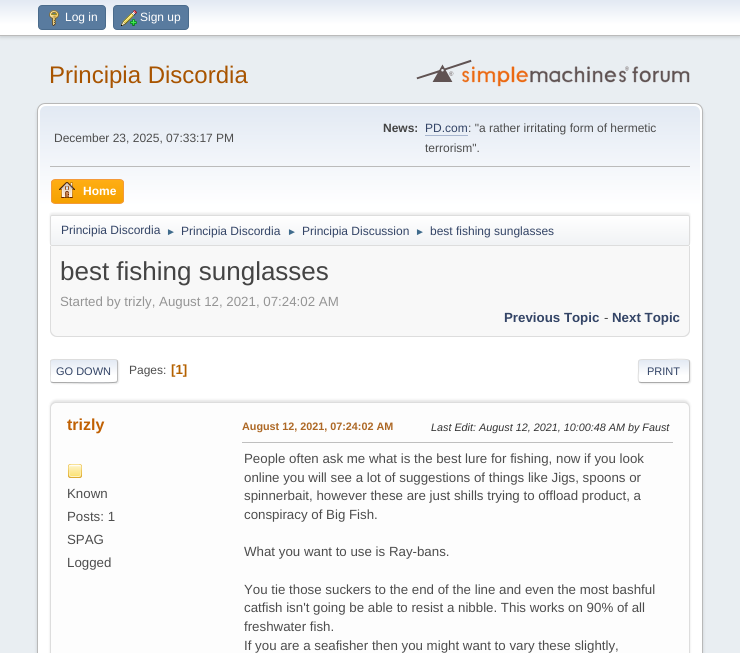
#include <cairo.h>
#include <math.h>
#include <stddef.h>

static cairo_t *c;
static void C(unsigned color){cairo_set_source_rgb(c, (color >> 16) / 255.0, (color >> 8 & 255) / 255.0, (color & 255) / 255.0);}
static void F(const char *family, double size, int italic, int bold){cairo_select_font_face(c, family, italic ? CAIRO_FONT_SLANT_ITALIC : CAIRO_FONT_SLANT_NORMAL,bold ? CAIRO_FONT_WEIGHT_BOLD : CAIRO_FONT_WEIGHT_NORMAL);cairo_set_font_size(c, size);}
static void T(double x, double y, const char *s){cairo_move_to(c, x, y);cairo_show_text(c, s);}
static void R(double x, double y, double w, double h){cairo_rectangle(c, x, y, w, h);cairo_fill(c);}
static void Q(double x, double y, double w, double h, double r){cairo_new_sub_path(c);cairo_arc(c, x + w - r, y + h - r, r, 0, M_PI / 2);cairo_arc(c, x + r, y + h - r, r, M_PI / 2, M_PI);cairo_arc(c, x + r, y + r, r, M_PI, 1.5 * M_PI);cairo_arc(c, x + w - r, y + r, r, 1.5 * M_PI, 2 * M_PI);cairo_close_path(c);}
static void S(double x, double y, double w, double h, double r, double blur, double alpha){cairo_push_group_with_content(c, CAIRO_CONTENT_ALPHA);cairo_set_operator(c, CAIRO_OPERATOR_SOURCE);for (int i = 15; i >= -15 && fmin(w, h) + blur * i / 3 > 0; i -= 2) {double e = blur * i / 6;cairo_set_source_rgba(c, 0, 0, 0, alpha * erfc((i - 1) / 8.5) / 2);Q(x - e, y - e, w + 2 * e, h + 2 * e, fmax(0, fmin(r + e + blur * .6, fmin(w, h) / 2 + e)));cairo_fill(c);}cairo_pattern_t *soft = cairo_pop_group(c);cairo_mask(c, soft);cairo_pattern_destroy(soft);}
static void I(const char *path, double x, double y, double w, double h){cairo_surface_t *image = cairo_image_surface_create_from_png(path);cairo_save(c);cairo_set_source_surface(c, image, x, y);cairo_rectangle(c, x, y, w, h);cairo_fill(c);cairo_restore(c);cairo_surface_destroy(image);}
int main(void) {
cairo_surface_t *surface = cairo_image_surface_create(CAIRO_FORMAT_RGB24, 740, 653);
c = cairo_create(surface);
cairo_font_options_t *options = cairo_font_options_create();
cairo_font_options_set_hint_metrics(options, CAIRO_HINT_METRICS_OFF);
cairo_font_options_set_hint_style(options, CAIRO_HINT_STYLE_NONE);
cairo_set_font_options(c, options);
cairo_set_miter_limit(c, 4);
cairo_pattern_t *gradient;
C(0xe9eef2);
cairo_paint(c);
C(0x000000);
S(0,1,740,36,0,2,.16);
gradient = cairo_pattern_create_linear(370,0,370,35);
cairo_pattern_add_color_stop_rgba(gradient,0,0.886,0.914,0.953,1);
cairo_pattern_add_color_stop_rgba(gradient,.7,1,1,1,1);
cairo_set_source(c,gradient);
cairo_pattern_destroy(gradient);
R(0,0,740,35);
C(0xbbbbbb);
R(0,35,740,1);
C(0x597b9f);
Q(38.5,5.5,67,24,3.5);
cairo_fill_preserve(c);
C(0x4a6b8c);
cairo_set_line_width(c,1);
cairo_stroke(c);
I("1.png",49,10,10,16);
F("Liberation Sans",12,0,0);
C(0xffffff);
T(65,21,"Log in");
C(0x597b9f);
Q(113.5,5.5,75,24,3.5);
cairo_fill_preserve(c);
C(0x4a6b8c);
cairo_stroke(c);
I("2.png",121,10,16,16);
C(0xffffff);
T(140,21,"Sign up");
F("Liberation Sans",24,0,0);
C(0xa85400);
T(49,83,"Principia Discordia");
I("3.png",416,59,274,28);
C(0x000000);
S(37,105,666,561,8,1.5,.14);
C(0xffffff);
Q(37.5,103.5,665,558,7.5);
cairo_fill_preserve(c);
C(0xb8b8b8);
cairo_stroke(c);
gradient = cairo_pattern_create_linear(370,106,370,248);
cairo_pattern_add_color_stop_rgba(gradient,0,0.886,0.914,0.953,1);
cairo_pattern_add_color_stop_rgba(gradient,.7,1,1,1,1);
cairo_set_source(c,gradient);
cairo_pattern_destroy(gradient);
cairo_new_path(c);
cairo_move_to(c,46,106);
cairo_line_to(c,694,106);
cairo_curve_to(c,697.5,106,700,108.5,700,112);
cairo_line_to(c,700,248);
cairo_line_to(c,40,248);
cairo_line_to(c,40,112);
cairo_curve_to(c,40,108.5,42.5,106,46,106);
cairo_close_path(c);
cairo_fill(c);
C(0xbbbbbb);
R(50,166,640,1);
F("Liberation Sans",12,0,0);
C(0x4d4d4d);
T(54,142,"December 23, 2025, 07:33:17 PM");
F("Liberation Sans",12,0,1);
C(0x444444);
T(383,132,"News:");
F("Liberation Sans",12,0,0);
C(0x334466);
T(425,132,"PD.com");
C(0xa8b6cf);
R(425,135,43,1);
C(0x4d4d4d);
T(468,132,": \"a rather irritating form of hermetic");
T(425,152,"terrorism\".");
cairo_save(c);
Q(51,179,73,25,4);
cairo_clip(c);
gradient = cairo_pattern_create_linear(88,180,88,203);
cairo_pattern_add_color_stop_rgba(gradient,0,1,0.682,0.078,1);
cairo_pattern_add_color_stop_rgba(gradient,1,0.961,0.631,0,1);
cairo_set_source(c,gradient);
cairo_pattern_destroy(gradient);
R(51,180,73,23);
cairo_restore(c);
Q(51.5,179.5,72,24,3.5);
C(0xf49a3a);
cairo_stroke(c);
I("4.png",59,182,16,16);
F("Liberation Sans",12,0,1);
C(0xffffff);
T(83,195,"Home");
C(0x000000);
S(50,213,640,31,2,1,.08);
cairo_save(c);
Q(50,215,640,31,2);
cairo_clip(c);
gradient = cairo_pattern_create_linear(370,216,370,245);
cairo_pattern_add_color_stop_rgba(gradient,0,1,1,1,1);
cairo_pattern_add_color_stop_rgba(gradient,.95,0.945,0.953,0.961,1);
cairo_set_source(c,gradient);
cairo_pattern_destroy(gradient);
R(50,216,640,29);
cairo_restore(c);
Q(50.5,215.5,639,30,1.5);
C(0xdddddd);
cairo_stroke(c);
F("Liberation Sans",12,0,0);
C(0x334466);
T(61,234,"Principia Discordia");
F("Liberation Sans",10,0,0);
C(0x3f6b8c);
T(166,235,"►");
F("Liberation Sans",12,0,0);
C(0x334466);
T(181,235,"Principia Discordia");
F("Liberation Sans",10,0,0);
C(0x3f6b8c);
T(287,235,"►");
F("Liberation Sans",12,0,0);
C(0x334466);
T(302,235,"Principia Discussion");
F("Liberation Sans",10,0,0);
C(0x3f6b8c);
T(415,235,"►");
F("Liberation Sans",12,0,0);
C(0x334466);
T(430,235,"best fishing sunglasses");
C(0xf8f8f8);
cairo_new_path(c);
cairo_move_to(c,50,246);
cairo_line_to(c,690,246);
cairo_line_to(c,690,330);
cairo_curve_to(c,690,334,687,337,683,337);
cairo_line_to(c,57,337);
cairo_curve_to(c,53,337,50,334,50,330);
cairo_close_path(c);
cairo_fill(c);
C(0xdddddd);
cairo_set_fill_rule(c,CAIRO_FILL_RULE_EVEN_ODD);
cairo_new_path(c);
cairo_move_to(c,50,246);
cairo_line_to(c,690,246);
cairo_line_to(c,690,330);
cairo_curve_to(c,690,334,687,337,683,337);
cairo_line_to(c,57,337);
cairo_curve_to(c,53,337,50,334,50,330);
cairo_close_path(c);
cairo_move_to(c,51,246);
cairo_line_to(c,689,246);
cairo_line_to(c,689,330);
cairo_curve_to(c,689,333,686,336,683,336);
cairo_line_to(c,57,336);
cairo_curve_to(c,54,336,51,333,51,330);
cairo_close_path(c);
cairo_fill(c);
F("Liberation Sans",26,0,0);
C(0x444444);
T(60,280,"best fishing sunglasses");
F("Liberation Sans",13.3,0,0);
C(0x959595);
T(60,306,"Started by trizly, August 12, 2021, 07:24:02 AM");
F("Liberation Sans",13.3,0,1);
C(0x334466);
T(504,322,"Previous Topic");
F("Liberation Sans",13.3,0,0);
C(0x4d4d4d);
T(604,322,"-");
F("Liberation Sans",13.3,0,1);
C(0x334466);
T(612,322,"Next Topic");
C(0xdddddd);
S(51,360,68,24,3,.5,.57);
cairo_save(c);
cairo_set_fill_rule(c,CAIRO_FILL_RULE_WINDING);
Q(50,359,68,24,3);
cairo_clip(c);
gradient = cairo_pattern_create_linear(84,360,84,382);
cairo_pattern_add_color_stop_rgba(gradient,0,0.886,0.914,0.953,1);
cairo_pattern_add_color_stop_rgba(gradient,.7,1,1,1,1);
cairo_set_source(c,gradient);
cairo_pattern_destroy(gradient);
R(50,360,68,22);
gradient = cairo_pattern_create_linear(84,382,84,404);
cairo_pattern_add_color_stop_rgba(gradient,0,0.886,0.914,0.953,1);
cairo_pattern_add_color_stop_rgba(gradient,.7,1,1,1,1);
cairo_set_source(c,gradient);
cairo_pattern_destroy(gradient);
R(50,382,68,1);
cairo_restore(c);
cairo_new_path(c);
cairo_move_to(c,117,360);
cairo_curve_to(c,117,360.5,117.5,361.5,117.5,362);
cairo_line_to(c,117.5,380);
cairo_curve_to(c,117.5,380.5,117,381.5,117,382);
C(0xbbbbbb);
cairo_stroke(c);
cairo_new_path(c);
cairo_move_to(c,117,382);
cairo_line_to(c,116.5,382);
cairo_curve_to(c,114.5,383.5,69.5,382.5,63.5,382.5);
cairo_line_to(c,53,382.5);
cairo_line_to(c,51,382);
C(0xaaaaaa);
cairo_stroke(c);
cairo_save(c);
cairo_set_fill_rule(c,CAIRO_FILL_RULE_WINDING);
cairo_rectangle(c,50,352,640,38);
cairo_clip(c);
cairo_new_path(c);
cairo_move_to(c,51,382);
cairo_curve_to(c,49.5,380,50.5,376,50.5,374);
cairo_curve_to(c,50.5,357.5,47,359.5,63.5,359.5);
cairo_line_to(c,115,359.5);
cairo_line_to(c,117,360);
C(0xdddddd);
cairo_stroke(c);
cairo_restore(c);
F("Liberation Sans",11,0,0);
C(0x334466);
T(56,375,"GO DOWN");
F("Liberation Sans",12,0,0);
C(0x4d4d4d);
T(129,374,"Pages:");
F("Liberation Sans",13.3,0,1);
C(0xb46100);
T(171,374,"[1]");
cairo_save(c);
cairo_new_path(c);
cairo_move_to(c,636,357);
cairo_line_to(c,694,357);
cairo_line_to(c,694,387);
cairo_line_to(c,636,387);
cairo_close_path(c);
cairo_move_to(c,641,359);
cairo_line_to(c,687,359);
cairo_curve_to(c,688.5,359,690,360.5,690,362);
cairo_line_to(c,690,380);
cairo_curve_to(c,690,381.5,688.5,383,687,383);
cairo_line_to(c,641,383);
cairo_curve_to(c,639.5,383,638,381.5,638,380);
cairo_line_to(c,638,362);
cairo_curve_to(c,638,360.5,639.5,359,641,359);
cairo_close_path(c);
cairo_clip(c);
C(0xdddddd);
S(639,360,52,24,3,.5,.57);
cairo_restore(c);
C(0xffffff);
Q(638,359,52,24,3);
cairo_fill(c);
cairo_save(c);
cairo_set_fill_rule(c,CAIRO_FILL_RULE_WINDING);
Q(638,359,52,24,3);
cairo_clip(c);
gradient = cairo_pattern_create_linear(664,360,664,382);
cairo_pattern_add_color_stop_rgba(gradient,0,0.886,0.914,0.953,1);
cairo_pattern_add_color_stop_rgba(gradient,.7,1,1,1,1);
cairo_set_source(c,gradient);
cairo_pattern_destroy(gradient);
R(638,360,52,22);
cairo_restore(c);
cairo_new_path(c);
cairo_move_to(c,689,360);
cairo_curve_to(c,689,360.5,689.5,361.5,689.5,362);
cairo_line_to(c,689.5,380);
cairo_curve_to(c,689.5,380.5,689,381.5,689,382);
C(0xbbbbbb);
cairo_stroke(c);
cairo_new_path(c);
cairo_move_to(c,689,382);
cairo_line_to(c,687,382.5);
cairo_line_to(c,641,382.5);
cairo_line_to(c,639,382);
C(0xaaaaaa);
cairo_stroke(c);
cairo_new_path(c);
cairo_move_to(c,639,382);
cairo_curve_to(c,637.5,380,638.5,373,638.5,371);
cairo_curve_to(c,638.5,358.5,636.5,359.5,648.5,359.5);
cairo_line_to(c,664,359.5);
cairo_curve_to(c,667.5,359.5,686.5,358.5,688.5,360);
cairo_line_to(c,689,360);
C(0xdddddd);
cairo_stroke(c);
F("Liberation Sans",11,0,0);
C(0x334466);
T(647,375,"PRINT");
C(0x000000);
S(50,400,640,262,6,1,.1);
C(0xfdfdfd);
Q(50.5,402.5,639,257,5.5);
cairo_fill_preserve(c);
C(0xdddddd);
cairo_stroke(c);
F("Liberation Sans",16,0,1);
C(0xc06002);
T(67,430,"trizly");
I("5.png",68,464,14,14);
F("Liberation Sans",13.3,0,0);
C(0x4d4d4d);
T(67,498,"Known");
T(67,521,"Posts: 1");
T(67,544,"SPAG");
T(67,567,"Logged");
F("Liberation Sans",10.8,0,1);
C(0xad6825);
T(242,430,"August 12, 2021, 07:24:02 AM");
F("Liberation Sans",10.8,1,0);
C(0x333333);
T(431,431,"Last Edit: August 12, 2021, 10:00:48 AM by Faust");
C(0xbfbfbf);
R(242,442,431,1);
F("Liberation Sans",13.3,0,0);
C(0x4d4d4d);
T(244,463,"People often ask me what is the best lure for fishing, now if you look");
T(244,482,"online you will see a lot of suggestions of things like Jigs, spoons or");
T(244,500,"spinnerbait, however these are just shills trying to offload product, a");
T(244,519,"conspiracy of Big Fish.");
T(244,556,"What you want to use is Ray-bans.");
T(244,594,"You tie those suckers to the end of the line and even the most bashful");
T(244,612,"catfish isn't going be able to resist a nibble. This works on 90% of all");
T(244,631,"freshwater fish.");
T(244,650,"If you are a seafisher then you might want to vary these slightly,");
cairo_surface_write_to_png(surface, "o.png");
cairo_font_options_destroy(options);
cairo_destroy(c);
cairo_surface_destroy(surface);
return 0;
}
